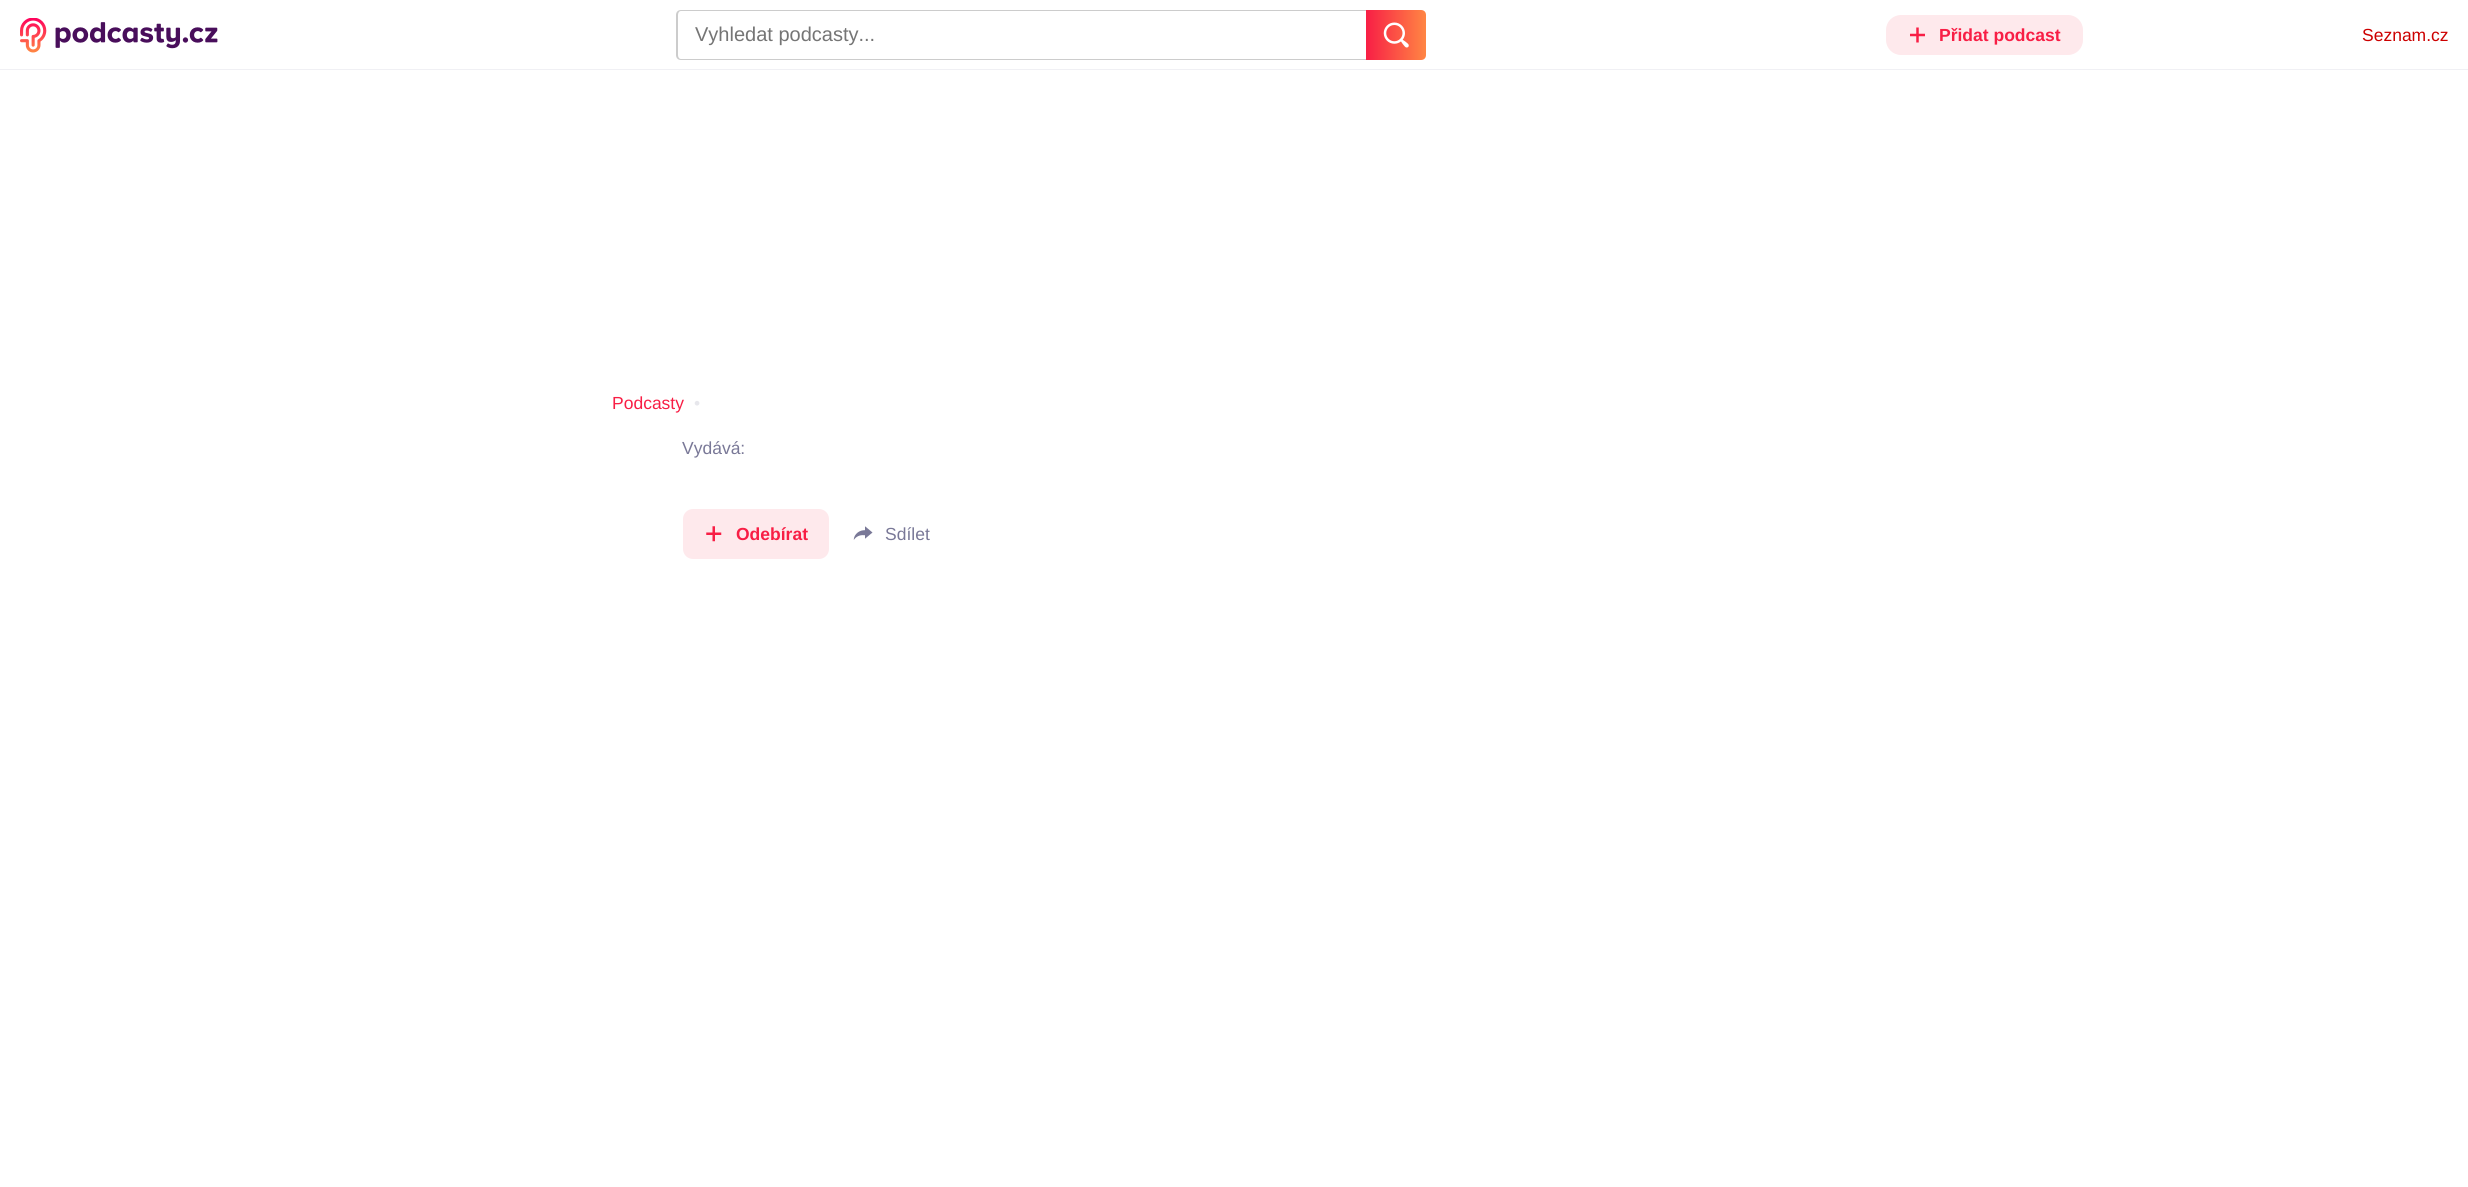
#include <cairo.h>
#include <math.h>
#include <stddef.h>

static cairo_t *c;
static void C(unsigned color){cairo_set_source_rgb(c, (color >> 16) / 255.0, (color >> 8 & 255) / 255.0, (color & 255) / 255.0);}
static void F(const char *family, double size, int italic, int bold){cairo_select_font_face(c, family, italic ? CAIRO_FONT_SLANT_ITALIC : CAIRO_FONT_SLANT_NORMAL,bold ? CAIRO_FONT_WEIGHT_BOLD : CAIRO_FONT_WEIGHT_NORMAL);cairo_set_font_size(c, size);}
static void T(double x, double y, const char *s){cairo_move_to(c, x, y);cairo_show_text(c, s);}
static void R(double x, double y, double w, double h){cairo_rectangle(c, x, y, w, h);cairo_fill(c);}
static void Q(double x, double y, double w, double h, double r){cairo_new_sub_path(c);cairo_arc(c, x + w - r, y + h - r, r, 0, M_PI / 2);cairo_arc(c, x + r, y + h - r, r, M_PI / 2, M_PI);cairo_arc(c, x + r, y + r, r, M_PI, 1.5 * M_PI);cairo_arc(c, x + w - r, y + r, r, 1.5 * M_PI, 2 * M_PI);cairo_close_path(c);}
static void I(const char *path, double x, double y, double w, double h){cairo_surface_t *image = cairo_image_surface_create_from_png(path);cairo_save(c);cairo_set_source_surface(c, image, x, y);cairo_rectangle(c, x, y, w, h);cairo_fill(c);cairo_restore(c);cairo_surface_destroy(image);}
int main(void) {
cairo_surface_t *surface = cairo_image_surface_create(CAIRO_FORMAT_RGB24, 2468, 1187);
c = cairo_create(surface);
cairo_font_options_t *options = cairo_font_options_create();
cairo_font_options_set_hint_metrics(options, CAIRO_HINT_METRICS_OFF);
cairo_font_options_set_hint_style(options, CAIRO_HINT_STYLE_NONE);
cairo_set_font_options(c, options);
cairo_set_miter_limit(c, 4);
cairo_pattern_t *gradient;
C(0xffffff);
cairo_paint(c);
C(0xf0f0f4);
R(0,69,2468,1);
I("1.png",20,18,198,35);
C(0xcccccc);
cairo_set_fill_rule(c,CAIRO_FILL_RULE_EVEN_ODD);
cairo_new_path(c);
cairo_move_to(c,681,10);
cairo_line_to(c,1366,10);
cairo_line_to(c,1366,60);
cairo_line_to(c,681,60);
cairo_curve_to(c,678,60,676,58,676,55);
cairo_line_to(c,676,15);
cairo_curve_to(c,676,12,678,10,681,10);
cairo_close_path(c);
cairo_move_to(c,681,11);
cairo_line_to(c,1366,11);
cairo_line_to(c,1366,59);
cairo_line_to(c,681,59);
cairo_curve_to(c,679,59,678,57,678,55);
cairo_line_to(c,678,15);
cairo_curve_to(c,678,13,679,11,681,11);
cairo_close_path(c);
cairo_fill(c);
F("Liberation Sans",20,0,0);
C(0x757575);
T(695,41,"Vyhledat podcasty...");
gradient = cairo_pattern_create_linear(1366,35,1426,35);
cairo_pattern_add_color_stop_rgba(gradient,0,0.973,0.118,0.271,1);
cairo_pattern_add_color_stop_rgba(gradient,1,1,0.525,0.267,1);
cairo_set_source(c,gradient);
cairo_pattern_destroy(gradient);
cairo_new_path(c);
cairo_move_to(c,1366,10);
cairo_line_to(c,1421,10);
cairo_curve_to(c,1424,10,1426,12,1426,15);
cairo_line_to(c,1426,55);
cairo_curve_to(c,1426,58,1424,60,1421,60);
cairo_line_to(c,1366,60);
cairo_close_path(c);
cairo_fill(c);
I("2.png",1383,22,26,26);
C(0xfee9ec);
Q(1886,15,197,40,15);
cairo_fill(c);
I("3.png",1910,27,15,16);
F("Liberation Sans",17.5,0,1);
C(0xf81e45);
T(1939,41,"Přidat podcast");
F("Liberation Sans",17.5,0,0);
C(0xcc0000);
T(2362,41,"Seznam.cz");
C(0xf81e45);
T(612,409,"Podcasty");
C(0xe7e7ec);
T(694,409,"•");
C(0x797897);
T(682,454,"Vydává:");
C(0xfee9ec);
Q(683,509,146,50,10);
cairo_fill(c);
I("4.png",706,526,16,16);
F("Liberation Sans",17.5,0,1);
C(0xf81e45);
T(736,540,"Odebírat");
I("5.png",853,526,20,14);
F("Liberation Sans",17.5,0,0);
C(0x797897);
T(885,540,"Sdílet");
cairo_surface_write_to_png(surface, "o.png");
cairo_font_options_destroy(options);
cairo_destroy(c);
cairo_surface_destroy(surface);
return 0;
}
